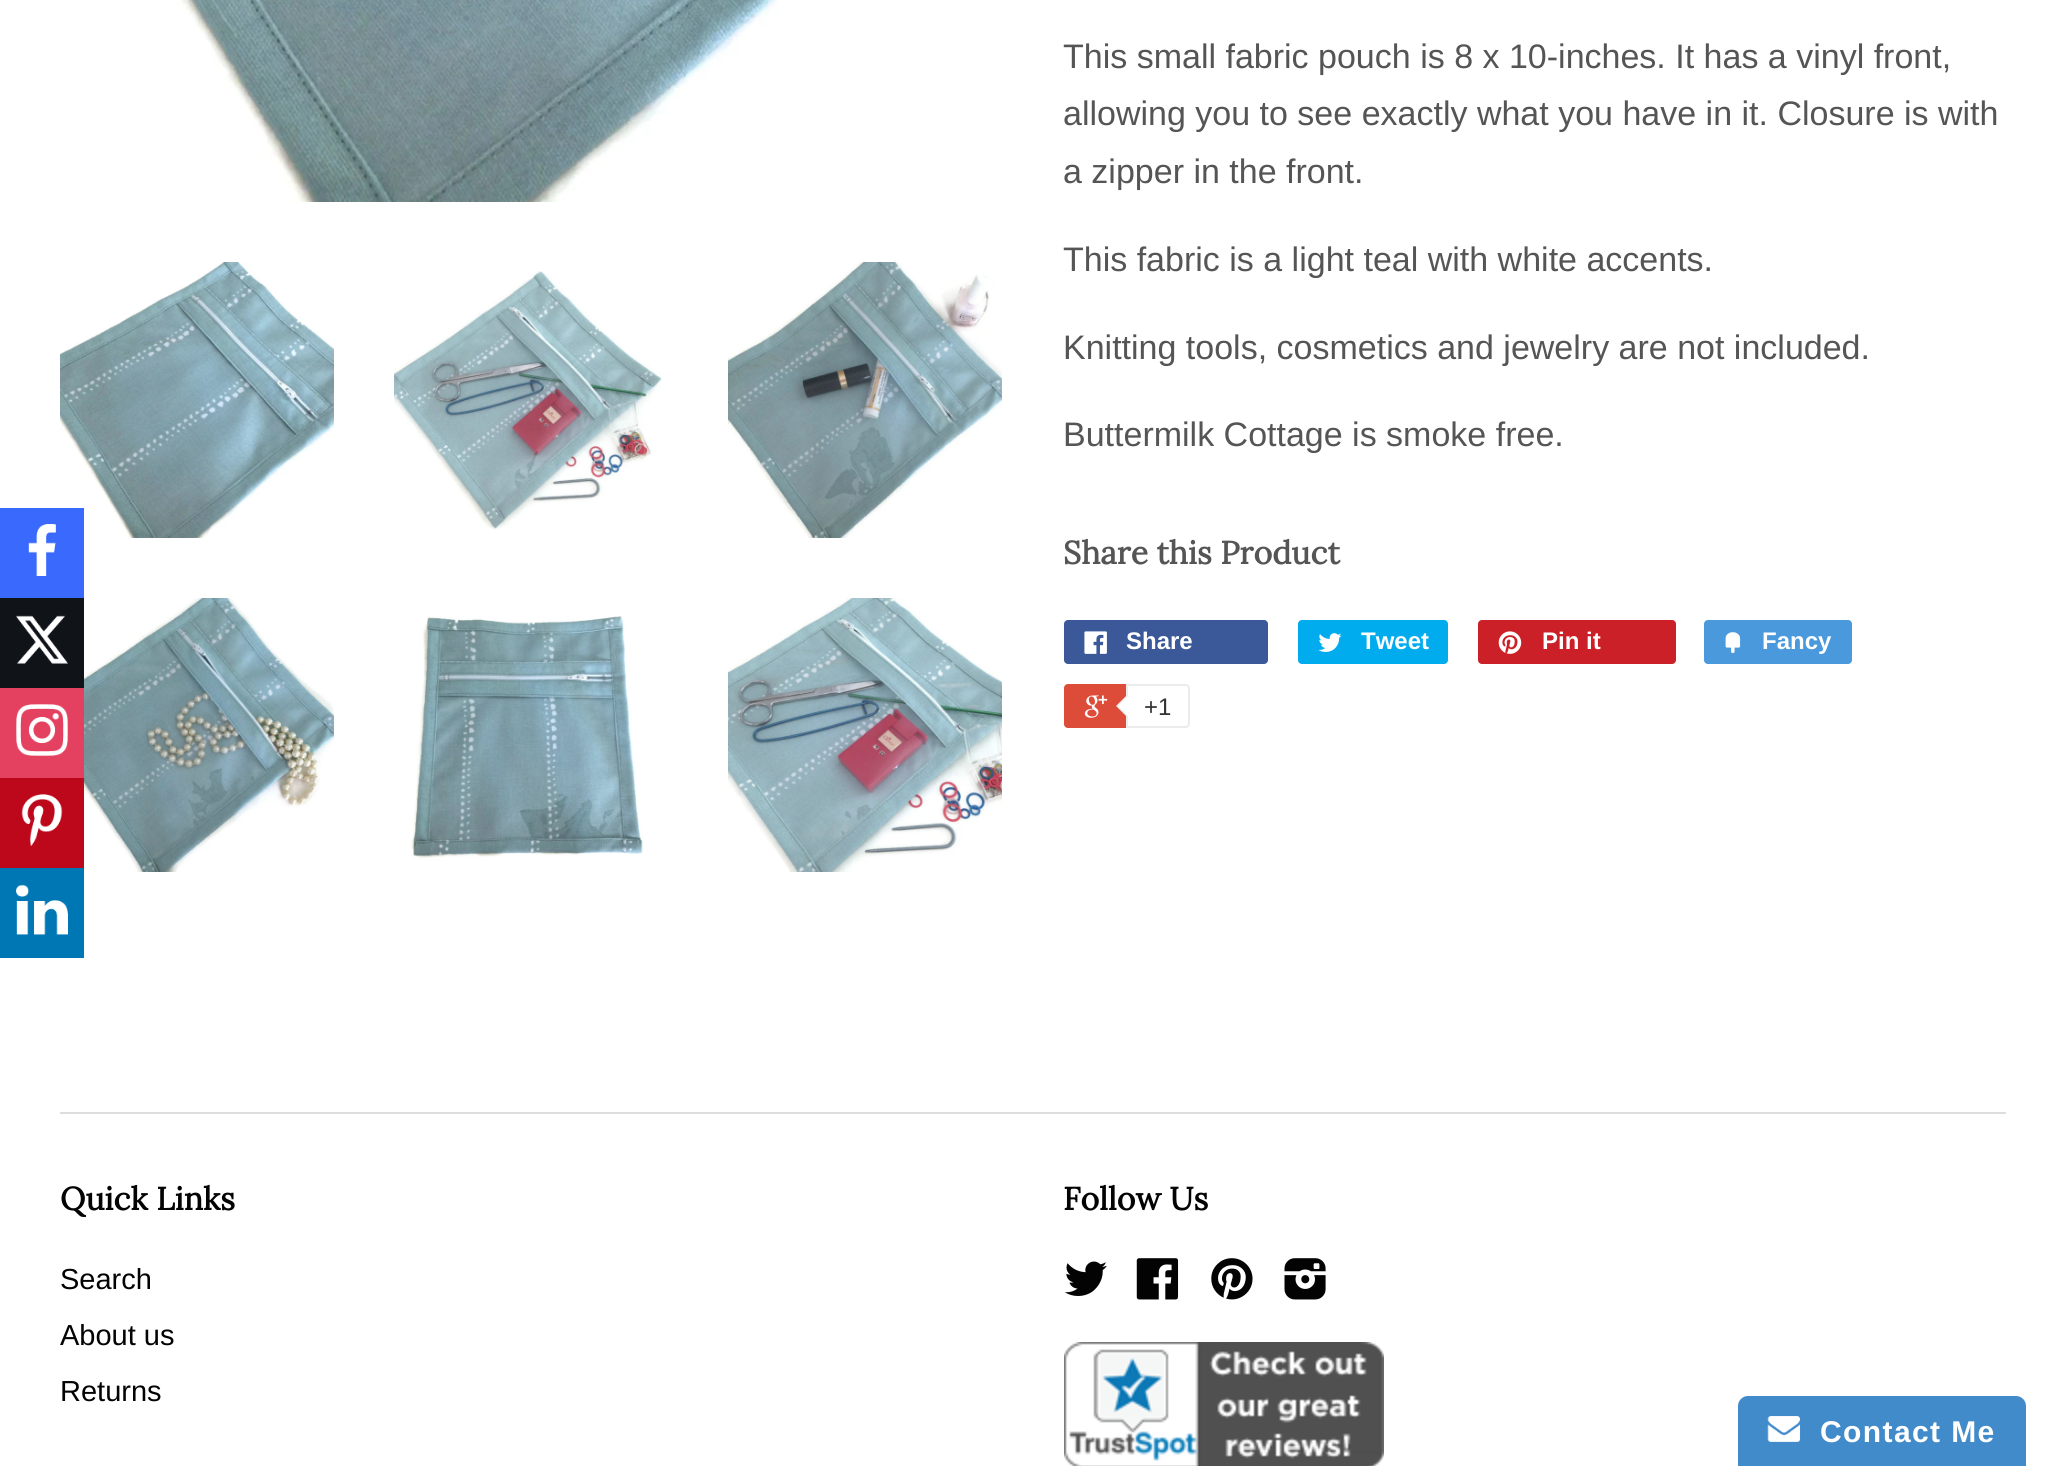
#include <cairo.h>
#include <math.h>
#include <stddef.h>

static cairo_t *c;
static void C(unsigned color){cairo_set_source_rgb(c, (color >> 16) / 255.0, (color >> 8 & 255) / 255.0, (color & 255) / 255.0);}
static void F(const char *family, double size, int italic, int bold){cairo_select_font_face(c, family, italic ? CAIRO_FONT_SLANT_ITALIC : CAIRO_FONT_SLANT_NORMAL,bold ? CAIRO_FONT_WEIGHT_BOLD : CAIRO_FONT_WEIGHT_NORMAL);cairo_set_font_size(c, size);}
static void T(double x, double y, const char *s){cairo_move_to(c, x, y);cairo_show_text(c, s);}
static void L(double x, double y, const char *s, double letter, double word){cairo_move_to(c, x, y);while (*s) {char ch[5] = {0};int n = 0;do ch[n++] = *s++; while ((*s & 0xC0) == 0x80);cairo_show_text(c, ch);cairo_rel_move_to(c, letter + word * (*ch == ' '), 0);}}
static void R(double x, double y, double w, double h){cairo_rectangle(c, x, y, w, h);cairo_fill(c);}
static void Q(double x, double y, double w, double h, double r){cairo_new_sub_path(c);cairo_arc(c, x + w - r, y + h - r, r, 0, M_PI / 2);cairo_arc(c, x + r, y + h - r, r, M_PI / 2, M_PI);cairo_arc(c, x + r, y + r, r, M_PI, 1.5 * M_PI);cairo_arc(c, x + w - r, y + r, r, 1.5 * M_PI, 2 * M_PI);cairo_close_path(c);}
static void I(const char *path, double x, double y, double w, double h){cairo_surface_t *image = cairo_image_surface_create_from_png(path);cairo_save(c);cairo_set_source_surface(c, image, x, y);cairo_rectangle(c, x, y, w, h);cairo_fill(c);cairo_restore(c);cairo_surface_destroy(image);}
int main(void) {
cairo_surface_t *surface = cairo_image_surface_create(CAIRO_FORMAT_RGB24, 2066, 1466);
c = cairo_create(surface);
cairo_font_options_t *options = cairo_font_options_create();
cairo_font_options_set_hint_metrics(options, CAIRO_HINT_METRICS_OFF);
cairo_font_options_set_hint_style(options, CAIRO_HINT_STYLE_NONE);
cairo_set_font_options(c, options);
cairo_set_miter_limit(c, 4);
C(0xffffff);
cairo_paint(c);
I("7.png",60,262,274,276);
C(0x3969fd);
R(0,508,84,90);
I("1.png",28,524,28,52);
C(0x101419);
R(0,598,84,90);
I("2.png",16,615,52,49);
C(0xe4405f);
R(0,688,84,90);
I("3.png",16,704,52,52);
C(0xbd081c);
R(0,778,84,90);
I("4.png",21,794,42,52);
C(0x0077b5);
R(0,868,84,90);
I("5.png",16,884,52,51);
I("6.png",178,0,600,202);
I("8.png",394,271,268,259);
I("9.png",728,262,274,276);
I("10.png",84,598,250,274);
I("11.png",410,616,233,245);
I("12.png",728,598,274,274);
F("Liberation Sans",34,0,0);
C(0x555555);
T(1063,68,"This small fabric pouch is 8 x 10-inches. It has a vinyl front,");
T(1063,125,"allowing you to see exactly what you have in it. Closure is with");
T(1063,183,"a zipper in the front.");
T(1063,271,"This fabric is a light teal with white accents.");
T(1063,359,"Knitting tools, cosmetics and jewelry are not included.");
T(1063,446,"Buttermilk Cottage is smoke free.");
F("Lora",32,0,1);
T(1063,564,"Share this Product");
C(0x3b5998);
Q(1064,620,204,44,4);
cairo_fill(c);
I("13.png",1084,631,23,23);
F("Liberation Sans",24,0,1);
C(0xffffff);
T(1126,649,"Share");
C(0x00aced);
Q(1298,620,150,44,4);
cairo_fill(c);
I("14.png",1318,633,24,19);
C(0xffffff);
T(1361,649,"Tweet");
C(0xcb2027);
Q(1478,620,198,44,4);
cairo_fill(c);
I("15.png",1498,631,24,23);
C(0xffffff);
T(1542,649,"Pin it");
C(0x4999dc);
Q(1704,620,148,44,4);
cairo_fill(c);
I("16.png",1725,632,16,21);
C(0xffffff);
T(1762,649,"Fancy");
C(0xdd4b39);
Q(1064,684,122,44,4);
cairo_fill(c);
I("17.png",1084,695,24,23);
C(0xffffff);
cairo_new_path(c);
cairo_move_to(c,1127,685);
cairo_line_to(c,1186,685);
cairo_curve_to(c,1187.5,685,1189,686.5,1189,688);
cairo_line_to(c,1189,724);
cairo_curve_to(c,1189,725.5,1187.5,727,1186,727);
cairo_line_to(c,1127,727);
cairo_close_path(c);
cairo_fill_preserve(c);
C(0xececec);
cairo_stroke(c);
cairo_new_path(c);
cairo_move_to(c,1128,694);
cairo_line_to(c,1128,718);
cairo_line_to(c,1116,706);
cairo_close_path(c);
cairo_fill(c);
C(0xffffff);
cairo_new_path(c);
cairo_move_to(c,1130,694);
cairo_line_to(c,1130,718);
cairo_line_to(c,1118,706);
cairo_close_path(c);
cairo_fill(c);
F("Liberation Sans",24,0,0);
C(0x333333);
T(1144,715,"+1");
C(0xdddddd);
R(60,1112,1946,2);
F("Lora",32,0,1);
C(0x030303);
T(60,1210,"Quick Links");
F("Liberation Sans",29,0,0);
T(60,1289,"Search");
T(60,1345,"About us");
T(60,1401,"Returns");
F("Lora",32,0,1);
T(1063,1210,"Follow Us");
I("18.png",1064,1261,43,35);
I("19.png",1136,1258,43,42);
I("20.png",1211,1258,42,42);
I("21.png",1284,1258,42,42);
I("22.png",1064,1342,320,124);
C(0x428bca);
cairo_new_path(c);
cairo_move_to(c,1748,1396);
cairo_line_to(c,2016,1396);
cairo_curve_to(c,2021.5,1396,2026,1400.5,2026,1406);
cairo_line_to(c,2026,1466);
cairo_line_to(c,1738,1466);
cairo_line_to(c,1738,1406);
cairo_curve_to(c,1738,1400.5,1742.5,1396,1748,1396);
cairo_close_path(c);
cairo_fill(c);
I("23.png",1767,1416,34,26);
F("Liberation Sans",30,0,1);
C(0xffffff);
L(1820,1442,"Contact Me",1.4,0);
cairo_surface_write_to_png(surface, "o.png");
cairo_font_options_destroy(options);
cairo_destroy(c);
cairo_surface_destroy(surface);
return 0;
}
